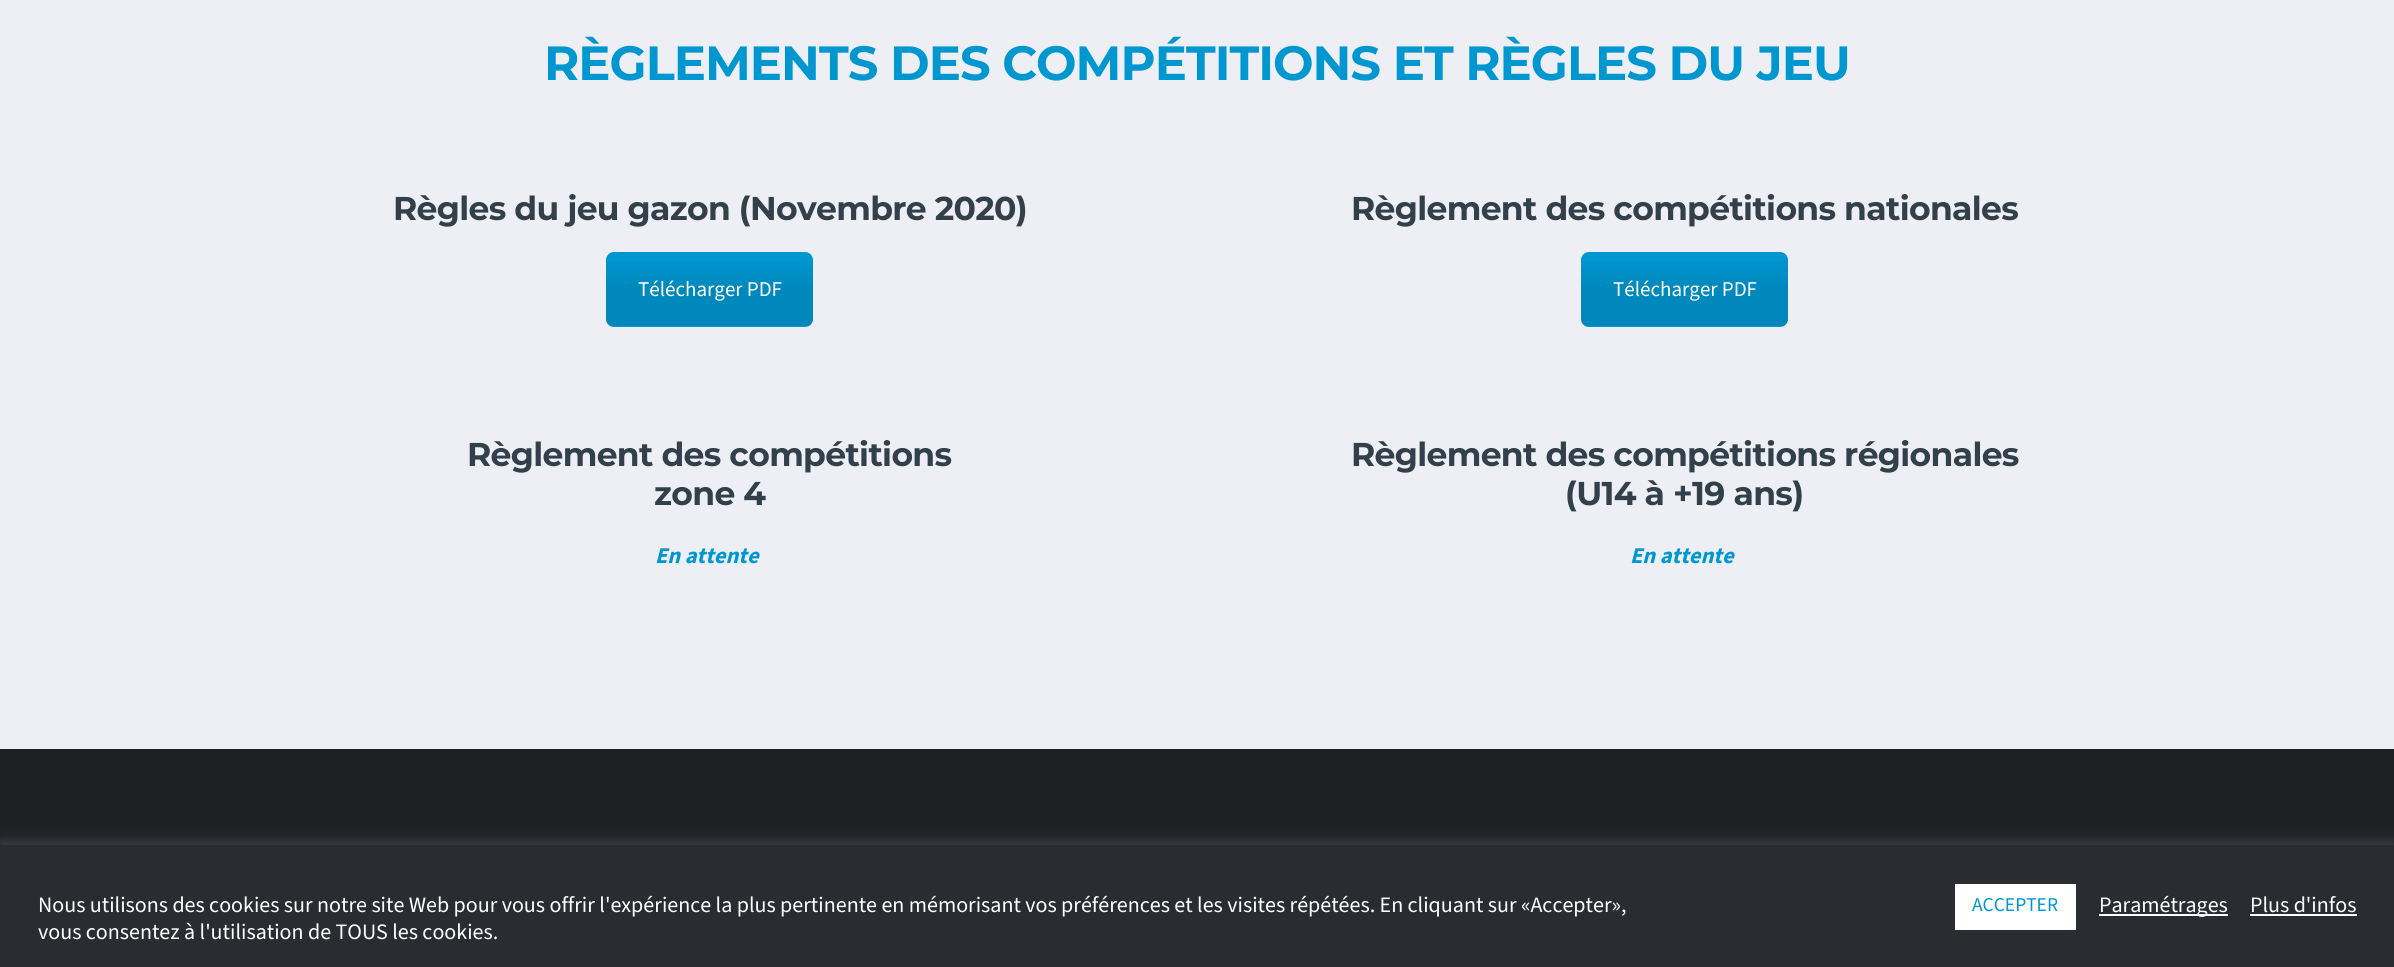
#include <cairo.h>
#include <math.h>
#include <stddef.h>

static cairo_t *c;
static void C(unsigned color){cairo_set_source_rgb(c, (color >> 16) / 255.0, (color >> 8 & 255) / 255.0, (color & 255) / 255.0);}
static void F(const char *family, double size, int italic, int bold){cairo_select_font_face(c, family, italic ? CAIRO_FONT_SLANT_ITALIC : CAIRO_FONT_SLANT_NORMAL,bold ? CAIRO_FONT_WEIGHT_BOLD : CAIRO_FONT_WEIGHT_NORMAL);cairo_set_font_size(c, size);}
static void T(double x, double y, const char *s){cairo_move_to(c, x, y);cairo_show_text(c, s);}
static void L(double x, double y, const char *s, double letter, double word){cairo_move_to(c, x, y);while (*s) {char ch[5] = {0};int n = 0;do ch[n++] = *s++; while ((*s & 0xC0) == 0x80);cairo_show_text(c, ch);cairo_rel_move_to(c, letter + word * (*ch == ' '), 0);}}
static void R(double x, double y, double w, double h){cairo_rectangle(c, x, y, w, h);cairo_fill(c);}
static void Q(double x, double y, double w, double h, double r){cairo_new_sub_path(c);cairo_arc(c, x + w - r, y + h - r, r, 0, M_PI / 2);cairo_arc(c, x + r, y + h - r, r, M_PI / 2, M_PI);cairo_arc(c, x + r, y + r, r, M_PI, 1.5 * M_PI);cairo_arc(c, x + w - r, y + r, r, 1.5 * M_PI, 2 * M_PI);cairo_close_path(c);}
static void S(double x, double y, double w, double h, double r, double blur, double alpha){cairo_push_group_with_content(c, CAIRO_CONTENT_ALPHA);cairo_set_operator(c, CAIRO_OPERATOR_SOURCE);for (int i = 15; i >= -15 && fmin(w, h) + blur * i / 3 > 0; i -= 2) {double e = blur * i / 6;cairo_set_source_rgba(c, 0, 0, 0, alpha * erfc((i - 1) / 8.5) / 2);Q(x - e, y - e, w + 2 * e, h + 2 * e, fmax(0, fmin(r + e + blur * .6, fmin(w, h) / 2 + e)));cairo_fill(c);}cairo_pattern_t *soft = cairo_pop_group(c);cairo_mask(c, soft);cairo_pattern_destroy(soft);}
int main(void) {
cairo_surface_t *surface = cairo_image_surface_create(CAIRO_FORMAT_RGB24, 2394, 967);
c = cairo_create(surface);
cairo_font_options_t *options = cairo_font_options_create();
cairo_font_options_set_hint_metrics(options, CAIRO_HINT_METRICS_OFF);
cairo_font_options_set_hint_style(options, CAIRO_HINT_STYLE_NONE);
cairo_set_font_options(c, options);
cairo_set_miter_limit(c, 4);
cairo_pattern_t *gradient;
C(0xedeff4);
cairo_paint(c);
F("Montserrat",48,0,1);
C(0x0097d1);
L(544,80,"RÈGLEMENTS DES COMPÉTITIONS ET RÈGLES DU JEU",-.95,0);
F("Montserrat",33,0,1);
C(0x31404b);
L(393,220,"Règles du jeu gazon (Novembre 2020)",-.65,0);
C(0x0097d1);
Q(606,252,207,75,8);
cairo_fill(c);
cairo_save(c);
Q(606,252,207,75,8);
cairo_clip(c);
gradient = cairo_pattern_create_linear(812,253,812,326);
cairo_pattern_add_color_stop_rgba(gradient,0,0,0,0,0);
cairo_pattern_add_color_stop_rgba(gradient,.5,0,0,0,.1);
cairo_pattern_add_color_stop_rgba(gradient,1,0,0,0,.1);
cairo_set_source(c,gradient);
cairo_pattern_destroy(gradient);
R(606,261,207,65);
cairo_restore(c);
F("Source Sans 3",21,0,0);
C(0xffffff);
T(638,296,"Télécharger PDF");
F("Montserrat",33,0,1);
C(0x31404b);
L(1351,220,"Règlement des compétitions nationales",-.65,0);
C(0x0097d1);
Q(1581,252,207,75,8);
cairo_fill(c);
cairo_save(c);
Q(1581,252,207,75,8);
cairo_clip(c);
gradient = cairo_pattern_create_linear(1787,253,1787,326);
cairo_pattern_add_color_stop_rgba(gradient,0,0,0,0,0);
cairo_pattern_add_color_stop_rgba(gradient,.5,0,0,0,.1);
cairo_pattern_add_color_stop_rgba(gradient,1,0,0,0,.1);
cairo_set_source(c,gradient);
cairo_pattern_destroy(gradient);
R(1581,261,207,65);
cairo_restore(c);
F("Source Sans 3",21,0,0);
C(0xffffff);
T(1613,296,"Télécharger PDF");
F("Montserrat",33,0,1);
C(0x31404b);
L(467,466,"Règlement des compétitions",-.65,0);
L(654,505,"zone 4",-.65,0);
F("Source Sans 3",22.5,1,1);
C(0x0097d1);
T(655,563,"En attente");
F("Montserrat",33,0,1);
C(0x31404b);
L(1351,466,"Règlement des compétitions régionales",-.65,0);
L(1565,505,"(U14 à +19 ans)",-.65,0);
F("Source Sans 3",22.5,1,1);
C(0x0097d1);
T(1630,563,"En attente");
C(0x1e2024);
R(0,749,2394,96);
C(0xacabab);
S(0,843,2394,123,0,7.5,.3);
C(0x292c31);
R(0,845,2394,122);
F("Source Sans 3",22,0,0);
C(0xffffff);
T(38,912,"Nous utilisons des cookies sur notre site Web pour vous offrir l'expérience la plus pertinente en mémorisant vos préférences et les visites répétées. En cliquant sur «Accepter»,");
T(38,939,"vous consentez à l'utilisation de TOUS les cookies.");
R(1955,884,121,46);
F("Source Sans 3",19.5,0,0);
C(0x0097d1);
T(1972,911,"ACCEPTER");
C(0xffffff);
R(2099,914,129,2);
F("Source Sans 3",22,0,0);
T(2099,912,"Paramétrages");
T(2250,912,"Plus d'infos");
R(2250,914,107,2);
cairo_surface_write_to_png(surface, "o.png");
cairo_font_options_destroy(options);
cairo_destroy(c);
cairo_surface_destroy(surface);
return 0;
}
